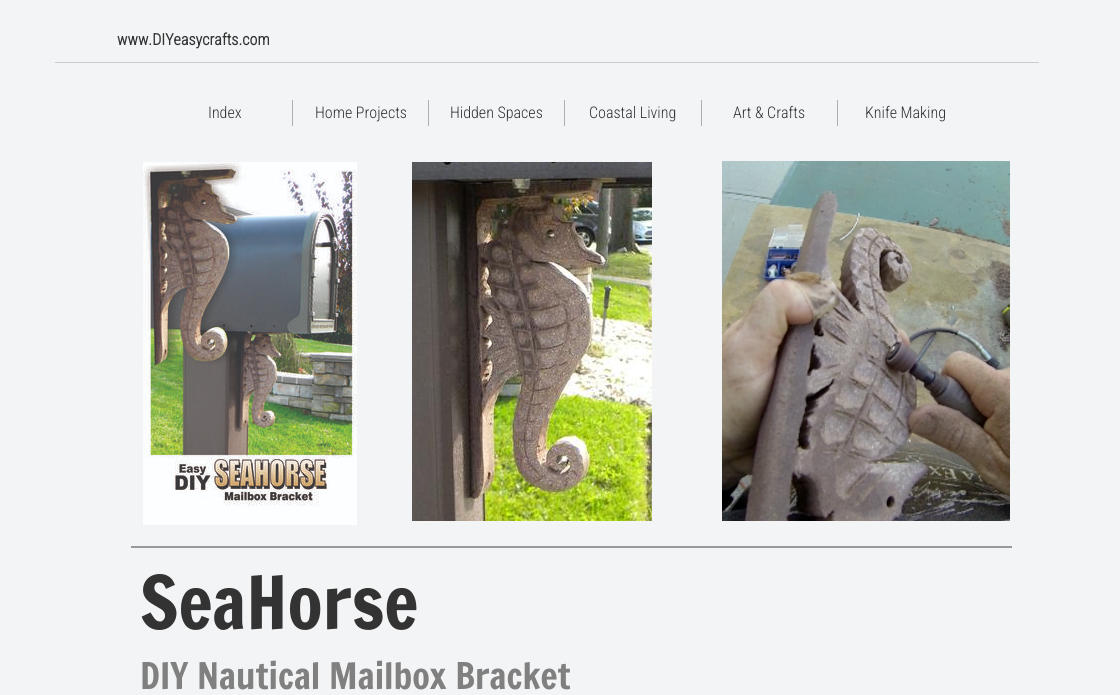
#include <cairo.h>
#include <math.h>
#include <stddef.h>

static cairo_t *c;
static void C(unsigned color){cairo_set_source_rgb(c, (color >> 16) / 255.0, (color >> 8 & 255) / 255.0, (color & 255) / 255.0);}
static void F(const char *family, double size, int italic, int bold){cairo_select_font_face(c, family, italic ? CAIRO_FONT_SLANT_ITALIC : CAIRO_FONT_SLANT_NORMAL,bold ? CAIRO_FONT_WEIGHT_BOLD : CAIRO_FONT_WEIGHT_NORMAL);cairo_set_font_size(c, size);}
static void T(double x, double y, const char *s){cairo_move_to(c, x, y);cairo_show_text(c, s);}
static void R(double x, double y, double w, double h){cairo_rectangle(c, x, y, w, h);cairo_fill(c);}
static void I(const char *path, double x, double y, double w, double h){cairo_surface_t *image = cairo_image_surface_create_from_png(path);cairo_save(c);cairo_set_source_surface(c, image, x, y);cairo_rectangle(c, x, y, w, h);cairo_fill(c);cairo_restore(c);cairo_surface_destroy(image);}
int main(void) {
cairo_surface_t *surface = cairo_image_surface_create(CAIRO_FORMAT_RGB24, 1120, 695);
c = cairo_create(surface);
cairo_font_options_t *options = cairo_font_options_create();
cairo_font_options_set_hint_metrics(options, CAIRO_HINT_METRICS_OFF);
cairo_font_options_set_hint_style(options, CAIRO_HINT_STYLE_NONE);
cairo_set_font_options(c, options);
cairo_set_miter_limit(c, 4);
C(0xf3f4f5);
cairo_paint(c);
F("Roboto Condensed",16,0,1);
C(0x333333);
T(117,45,"www.DIYeasycrafts.com");
C(0xcccccc);
R(55,62,984,1);
C(0xaeaeae);
R(292,100,1,26);
F("Roboto Condensed Light",16,0,0);
C(0x333333);
T(208,118,"Index");
C(0xaeaeae);
R(428,100,1,26);
C(0x333333);
T(315,118,"Home Projects");
C(0xaeaeae);
R(564,100,1,26);
C(0x333333);
T(450,118,"Hidden Spaces");
C(0xaeaeae);
R(701,100,1,26);
C(0x333333);
T(589,118,"Coastal Living");
C(0xaeaeae);
R(837,100,1,26);
C(0x333333);
T(733,118,"Art & Crafts");
T(865,118,"Knife Making");
I("1.png",143,162,214,363);
I("2.png",412,162,240,359);
I("3.png",722,161,288,360);
C(0x999999);
R(131,546,881,2);
F("Francois One",72,0,0);
C(0x333333);
T(140,629,"SeaHorse");
F("Francois One",36,0,0);
C(0x808080);
T(140,689,"DIY Nautical Mailbox Bracket");
cairo_surface_write_to_png(surface, "o.png");
cairo_font_options_destroy(options);
cairo_destroy(c);
cairo_surface_destroy(surface);
return 0;
}
